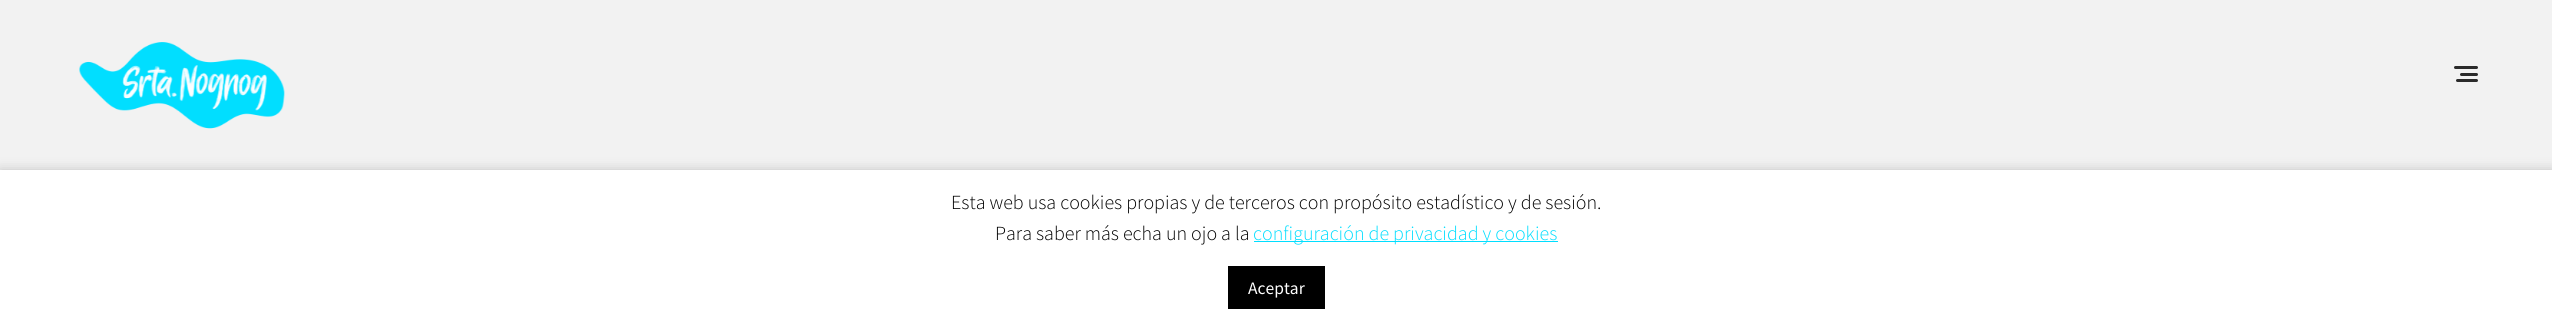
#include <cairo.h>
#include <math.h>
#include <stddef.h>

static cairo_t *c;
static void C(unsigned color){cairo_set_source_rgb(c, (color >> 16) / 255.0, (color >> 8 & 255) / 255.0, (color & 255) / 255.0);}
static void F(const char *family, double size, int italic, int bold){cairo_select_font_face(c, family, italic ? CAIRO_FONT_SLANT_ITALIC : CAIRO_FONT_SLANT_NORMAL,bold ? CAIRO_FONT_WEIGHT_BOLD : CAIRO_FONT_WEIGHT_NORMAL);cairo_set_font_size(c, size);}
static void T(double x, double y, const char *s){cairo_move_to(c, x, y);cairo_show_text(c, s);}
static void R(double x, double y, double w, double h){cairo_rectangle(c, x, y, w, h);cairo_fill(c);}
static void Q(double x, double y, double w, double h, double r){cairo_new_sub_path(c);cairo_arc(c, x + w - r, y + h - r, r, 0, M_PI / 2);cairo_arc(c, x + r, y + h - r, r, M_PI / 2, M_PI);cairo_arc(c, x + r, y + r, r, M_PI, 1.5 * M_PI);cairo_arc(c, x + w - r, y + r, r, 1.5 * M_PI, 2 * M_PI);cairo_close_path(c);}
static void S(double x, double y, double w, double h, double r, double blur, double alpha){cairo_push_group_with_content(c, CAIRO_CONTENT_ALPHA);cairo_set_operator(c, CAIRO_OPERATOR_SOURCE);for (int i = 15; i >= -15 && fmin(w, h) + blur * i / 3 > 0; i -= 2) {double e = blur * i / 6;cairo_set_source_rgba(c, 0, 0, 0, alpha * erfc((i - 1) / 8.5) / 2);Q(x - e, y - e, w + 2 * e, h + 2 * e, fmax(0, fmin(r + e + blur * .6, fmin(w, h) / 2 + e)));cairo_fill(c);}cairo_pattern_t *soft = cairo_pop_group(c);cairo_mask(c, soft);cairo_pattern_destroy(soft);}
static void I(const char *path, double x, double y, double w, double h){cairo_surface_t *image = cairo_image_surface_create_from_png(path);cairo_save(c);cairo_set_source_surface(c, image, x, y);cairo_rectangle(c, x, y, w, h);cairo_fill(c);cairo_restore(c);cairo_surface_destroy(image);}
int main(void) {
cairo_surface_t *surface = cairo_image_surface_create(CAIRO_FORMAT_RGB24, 2552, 331);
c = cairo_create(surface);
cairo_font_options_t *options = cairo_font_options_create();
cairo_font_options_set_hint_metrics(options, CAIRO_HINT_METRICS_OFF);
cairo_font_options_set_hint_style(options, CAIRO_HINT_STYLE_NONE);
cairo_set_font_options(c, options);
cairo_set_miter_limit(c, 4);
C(0xf2f2f2);
cairo_paint(c);
I("1.png",79,42,206,87);
C(0x2b2b2b);
Q(2454,66,24,3,1.5);
cairo_fill(c);
Q(2460,73,18,3,1.5);
cairo_fill(c);
Q(2456,79,22,3,1.5);
cairo_fill(c);
C(0x000000);
S(0,170,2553,161,0,6,.2);
C(0xffffff);
R(0,170,2552,161);
F("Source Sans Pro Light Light",20,0,0);
C(0x000000);
T(951,209,"Esta web usa cookies propias y de terceros con propósito estadístico y de sesión.");
T(995,240,"Para saber más echa un ojo a la");
C(0x01deff);
R(1254,241,304,1);
T(1253,240,"configuración de privacidad y cookies");
C(0x000000);
R(1228,266,97,43);
F("Source Sans Pro",17.5,0,0);
C(0xffffff);
T(1248,294,"Aceptar");
cairo_surface_write_to_png(surface, "o.png");
cairo_font_options_destroy(options);
cairo_destroy(c);
cairo_surface_destroy(surface);
return 0;
}
